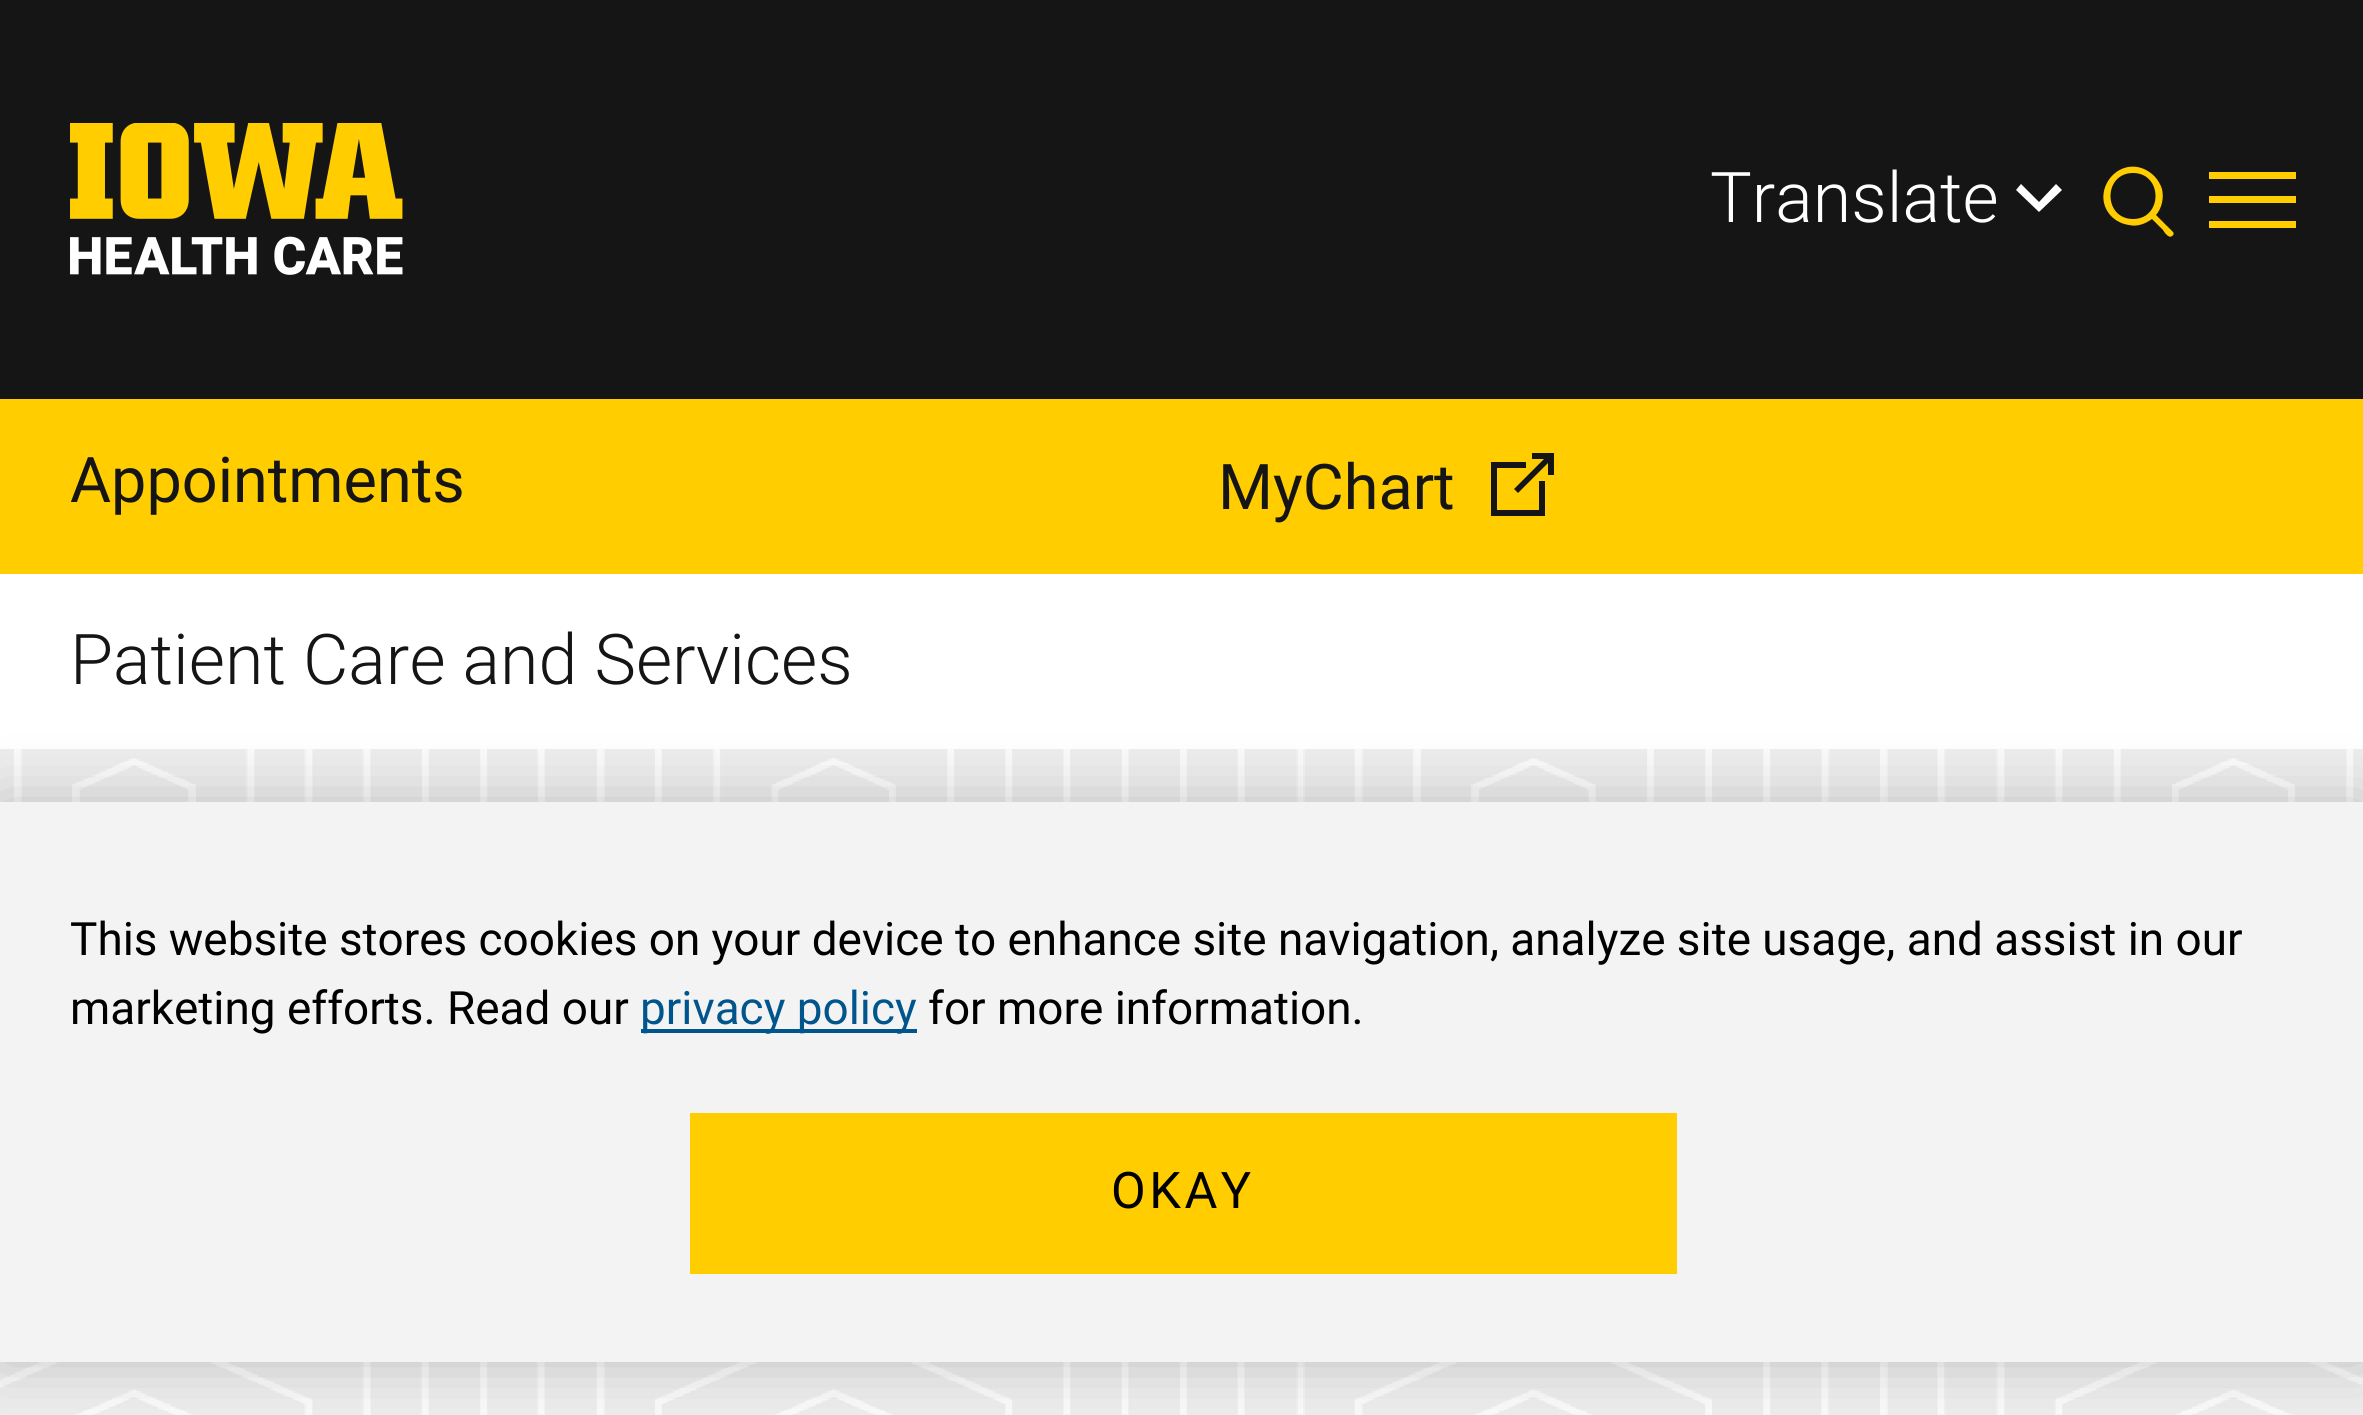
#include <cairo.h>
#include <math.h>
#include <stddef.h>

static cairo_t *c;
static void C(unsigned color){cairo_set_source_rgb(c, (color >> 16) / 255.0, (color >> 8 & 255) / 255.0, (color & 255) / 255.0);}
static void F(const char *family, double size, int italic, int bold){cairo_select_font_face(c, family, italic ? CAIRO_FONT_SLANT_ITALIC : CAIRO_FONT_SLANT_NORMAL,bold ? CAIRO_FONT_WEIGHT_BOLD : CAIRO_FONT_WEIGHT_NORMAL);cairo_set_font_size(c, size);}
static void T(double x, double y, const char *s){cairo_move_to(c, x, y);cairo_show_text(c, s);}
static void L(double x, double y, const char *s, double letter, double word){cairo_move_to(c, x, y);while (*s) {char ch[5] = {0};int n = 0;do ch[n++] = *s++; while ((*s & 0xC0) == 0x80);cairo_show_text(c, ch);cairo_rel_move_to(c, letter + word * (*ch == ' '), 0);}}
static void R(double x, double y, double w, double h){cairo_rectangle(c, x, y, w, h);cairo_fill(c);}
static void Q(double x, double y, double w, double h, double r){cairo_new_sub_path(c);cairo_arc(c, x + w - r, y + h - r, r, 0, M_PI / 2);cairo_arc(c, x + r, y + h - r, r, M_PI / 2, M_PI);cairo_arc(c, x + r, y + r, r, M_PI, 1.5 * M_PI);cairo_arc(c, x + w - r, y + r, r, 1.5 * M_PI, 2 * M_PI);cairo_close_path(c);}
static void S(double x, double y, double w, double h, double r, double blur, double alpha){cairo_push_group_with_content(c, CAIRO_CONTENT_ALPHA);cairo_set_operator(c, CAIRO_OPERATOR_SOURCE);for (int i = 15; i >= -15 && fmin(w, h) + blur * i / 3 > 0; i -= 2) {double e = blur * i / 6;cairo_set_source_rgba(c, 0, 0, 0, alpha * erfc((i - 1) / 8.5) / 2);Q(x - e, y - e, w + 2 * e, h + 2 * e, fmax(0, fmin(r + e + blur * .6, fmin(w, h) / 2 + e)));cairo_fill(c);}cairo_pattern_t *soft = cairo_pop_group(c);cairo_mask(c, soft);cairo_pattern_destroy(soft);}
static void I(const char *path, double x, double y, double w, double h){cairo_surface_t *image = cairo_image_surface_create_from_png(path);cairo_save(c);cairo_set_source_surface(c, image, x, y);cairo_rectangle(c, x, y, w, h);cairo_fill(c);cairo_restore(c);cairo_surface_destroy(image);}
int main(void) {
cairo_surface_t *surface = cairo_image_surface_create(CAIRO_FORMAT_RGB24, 2363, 1415);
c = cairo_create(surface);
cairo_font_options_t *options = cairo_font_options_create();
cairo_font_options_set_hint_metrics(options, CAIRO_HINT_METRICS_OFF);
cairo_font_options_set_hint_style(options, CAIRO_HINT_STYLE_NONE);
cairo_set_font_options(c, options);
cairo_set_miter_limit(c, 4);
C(0xededed);
cairo_paint(c);
C(0x151515);
R(0,0,2363,399);
I("1.png",70,123,333,152);
F("Roboto Light",70,0,0);
C(0xffffff);
T(1710,222,"Translate");
cairo_new_path(c);
cairo_move_to(c,2021,184);
cairo_line_to(c,2039,202);
cairo_line_to(c,2056,184);
cairo_line_to(c,2062,190);
cairo_line_to(c,2039,212);
cairo_line_to(c,2016,190);
cairo_close_path(c);
cairo_fill(c);
C(0xffcd00);
cairo_new_path(c);
cairo_move_to(c,2133,219);
cairo_curve_to(c,2103,219,2103,173,2133,173);
cairo_curve_to(c,2163,173,2163,219,2133,219);
cairo_close_path(c);
cairo_move_to(c,2173,232);
cairo_line_to(c,2156,215);
cairo_curve_to(c,2162,208,2164,198,2162,189);
cairo_curve_to(c,2159,180,2153,173,2144,169);
cairo_curve_to(c,2116,157,2090,193,2111,216);
cairo_curve_to(c,2116,221,2122,224,2129,225);
cairo_curve_to(c,2137,227,2145,224,2152,219);
cairo_line_to(c,2163,230);
cairo_curve_to(c,2164,232,2169,239,2172,236);
cairo_curve_to(c,2174,235,2174,233,2173,232);
cairo_close_path(c);
cairo_fill(c);
R(2209,172,87,7);
R(2209,196,87,7);
R(2209,221,87,7);
R(0,399,2363,175);
F("Roboto",63,0,0);
C(0x151515);
T(70,502,"Appointments");
T(1218,509,"MyChart");
cairo_new_path(c);
cairo_move_to(c,1514,489);
cairo_line_to(c,1544,459);
cairo_line_to(c,1532,459);
cairo_line_to(c,1532,453);
cairo_line_to(c,1554,453);
cairo_line_to(c,1554,475);
cairo_line_to(c,1548,475);
cairo_line_to(c,1548,463);
cairo_line_to(c,1518,493);
cairo_close_path(c);
cairo_move_to(c,1539,481);
cairo_line_to(c,1539,510);
cairo_line_to(c,1497,510);
cairo_line_to(c,1497,468);
cairo_line_to(c,1526,468);
cairo_line_to(c,1526,462);
cairo_line_to(c,1491,462);
cairo_line_to(c,1491,516);
cairo_line_to(c,1545,516);
cairo_line_to(c,1545,481);
cairo_close_path(c);
cairo_fill(c);
C(0xffffff);
R(0,574,2363,175);
F("Roboto Light",70,0,0);
C(0x151515);
T(70,684,"Patient Care and Services");
I("2.png",0,749,2363,666);
C(0x000000);
S(0,802,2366,560,0,31.5,.2);
C(0xf3f3f3);
R(0,802,2363,560);
F("Roboto",45.9,0,0);
C(0x000000);
T(70,955,"This website stores cookies on your device to enhance site navigation, analyze site usage, and assist in our");
T(70,1024,"marketing efforts.");
T(447,1024,"Read our");
C(0x00558c);
R(641,1029,276,4);
T(640,1024,"privacy policy");
C(0x000000);
T(928,1024,"for more information.");
C(0xffcd00);
R(690,1113,987,161);
F("Roboto",50.5,0,0);
C(0x000000);
L(1111,1208,"OKAY",3.5,0);
cairo_surface_write_to_png(surface, "o.png");
cairo_font_options_destroy(options);
cairo_destroy(c);
cairo_surface_destroy(surface);
return 0;
}
